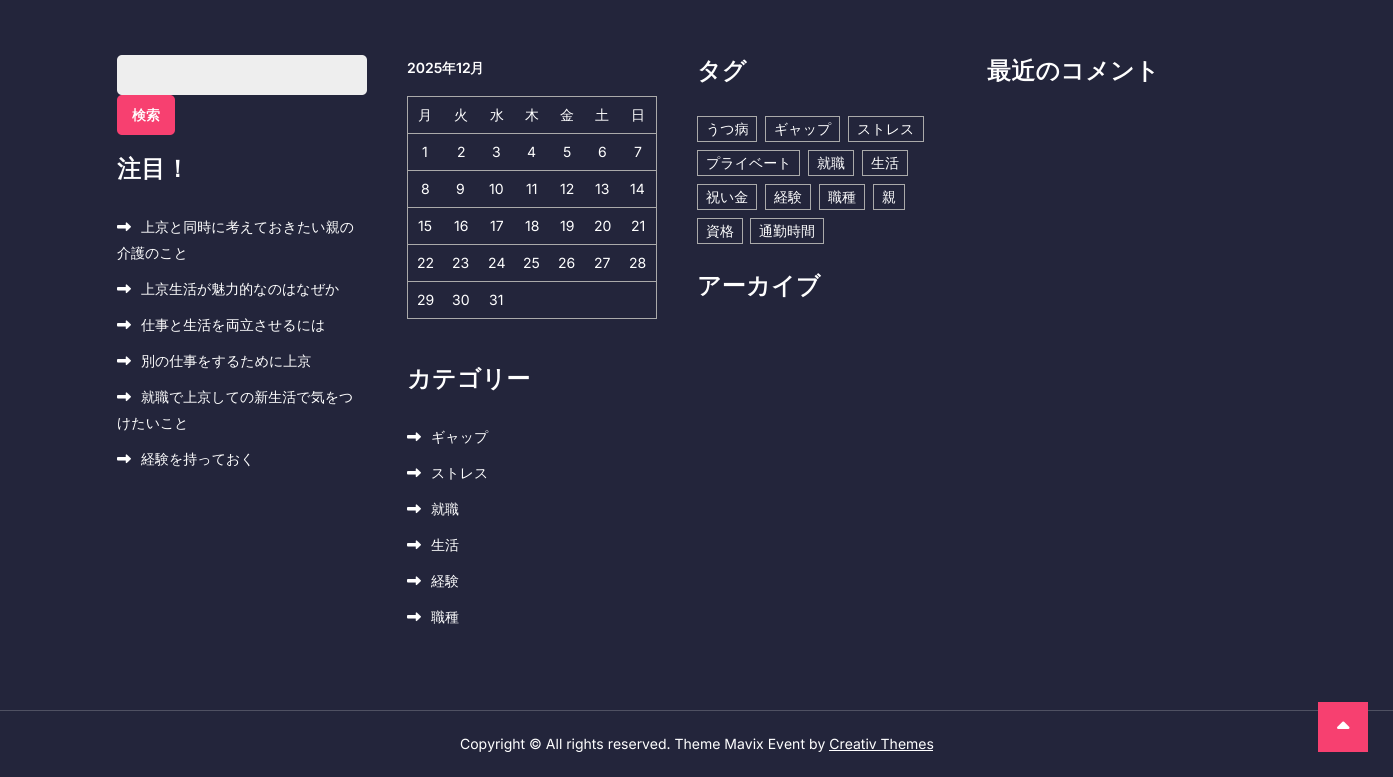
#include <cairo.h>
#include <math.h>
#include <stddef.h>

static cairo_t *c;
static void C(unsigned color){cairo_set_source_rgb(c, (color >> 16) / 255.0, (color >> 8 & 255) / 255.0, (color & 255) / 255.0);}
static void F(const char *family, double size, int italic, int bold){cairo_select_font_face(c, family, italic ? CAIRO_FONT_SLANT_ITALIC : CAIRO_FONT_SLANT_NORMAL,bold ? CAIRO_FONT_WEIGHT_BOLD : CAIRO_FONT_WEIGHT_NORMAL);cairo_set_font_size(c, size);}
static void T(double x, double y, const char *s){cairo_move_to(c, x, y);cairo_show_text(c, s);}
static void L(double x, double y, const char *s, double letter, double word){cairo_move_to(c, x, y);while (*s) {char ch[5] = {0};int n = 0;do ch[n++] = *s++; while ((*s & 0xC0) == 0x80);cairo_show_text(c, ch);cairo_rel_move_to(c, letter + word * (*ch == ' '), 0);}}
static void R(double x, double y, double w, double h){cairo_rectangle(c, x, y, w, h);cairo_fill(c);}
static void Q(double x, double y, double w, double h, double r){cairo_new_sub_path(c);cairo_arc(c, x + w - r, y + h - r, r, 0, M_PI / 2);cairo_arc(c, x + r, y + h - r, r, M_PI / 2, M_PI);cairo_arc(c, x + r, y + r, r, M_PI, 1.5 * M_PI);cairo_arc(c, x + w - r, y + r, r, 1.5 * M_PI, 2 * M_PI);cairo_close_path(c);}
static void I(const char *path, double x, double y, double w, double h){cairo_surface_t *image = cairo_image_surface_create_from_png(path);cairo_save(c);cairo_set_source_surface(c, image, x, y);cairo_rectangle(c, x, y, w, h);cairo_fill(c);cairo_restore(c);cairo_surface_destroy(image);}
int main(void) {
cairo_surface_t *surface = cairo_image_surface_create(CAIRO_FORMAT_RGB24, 1393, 777);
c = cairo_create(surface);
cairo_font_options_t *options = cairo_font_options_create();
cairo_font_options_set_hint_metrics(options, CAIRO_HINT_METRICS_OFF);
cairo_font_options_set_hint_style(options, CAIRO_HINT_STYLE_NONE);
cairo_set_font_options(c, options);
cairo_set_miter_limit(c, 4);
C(0x23253b);
cairo_paint(c);
C(0xeeeeee);
Q(117,55,250,40,5);
cairo_fill(c);
C(0xf74070);
Q(117,95,58,40,5);
cairo_fill(c);
F("WenQuanYi Zen Hei",14,0,1);
C(0xffffff);
T(132,120,"検索");
F("WenQuanYi Zen Hei",24,0,1);
L(117,177,"注目！",.25,0);
I("1.png",117,222,14,10);
F("WenQuanYi Zen Hei Medium",14,0,0);
T(141,232,"上京と同時に考えておきたい親の");
T(117,258,"介護のこと");
I("1.png",117,284,14,10);
T(141,294,"上京生活が魅力的なのはなぜか");
I("1.png",117,320,14,10);
T(141,330,"仕事と生活を両立させるには");
I("1.png",117,356,14,10);
T(141,366,"別の仕事をするために上京");
I("1.png",117,392,14,10);
T(141,402,"就職で上京しての新生活で気をつ");
T(117,428,"けたいこと");
I("1.png",117,454,14,10);
T(141,464,"経験を持っておく");
F("Inter SemiBold",14,0,0);
T(407,73,"2025");
F("WenQuanYi Zen Hei",14,0,1);
T(442,73,"年");
F("Inter SemiBold",14,0,0);
T(456,73,"12");
F("WenQuanYi Zen Hei",14,0,1);
T(470,73,"月");
C(0xaaaaaa);
R(407,96,250,1);
R(407,133,250,1);
R(407,170,250,1);
R(407,207,250,1);
R(407,244,250,1);
R(407,281,250,1);
R(656,281,1,38);
R(656,244,1,38);
R(656,207,1,38);
R(656,170,1,38);
R(656,133,1,38);
R(656,96,1,38);
R(407,318,250,1);
R(407,281,1,38);
R(407,244,1,38);
R(407,207,1,38);
R(407,170,1,38);
R(407,133,1,38);
R(407,96,1,38);
F("WenQuanYi Zen Hei Medium",14,0,0);
C(0xffffff);
T(418,120,"月");
T(454,120,"火");
T(490,120,"水");
T(525,120,"木");
T(560,120,"金");
T(595,120,"土");
T(631,120,"日");
F("Inter",14,0,0);
T(422,157,"1");
T(457,157,"2");
T(492,157,"3");
T(527,157,"4");
T(563,157,"5");
T(598,157,"6");
T(634,157,"7");
T(421,194,"8");
T(456,194,"9");
T(489,194,"10");
T(526,194,"11");
T(560,194,"12");
T(595,194,"13");
T(630,194,"14");
T(418,231,"15");
T(454,231,"16");
T(490,231,"17");
T(525,231,"18");
T(560,231,"19");
T(594,231,"20");
T(631,231,"21");
T(417,268,"22");
T(452,268,"23");
T(488,268,"24");
T(523,268,"25");
T(558,268,"26");
T(594,268,"27");
T(629,268,"28");
T(417,305,"29");
T(452,305,"30");
T(489,305,"31");
F("WenQuanYi Zen Hei",24,0,1);
L(407,387,"カテゴリー",.25,0);
I("1.png",407,432,14,10);
F("WenQuanYi Zen Hei Medium",14,0,0);
T(431,442,"ギャップ");
I("1.png",407,468,14,10);
T(431,478,"ストレス");
I("1.png",407,504,14,10);
T(431,514,"就職");
I("1.png",407,540,14,10);
T(431,550,"生活");
I("1.png",407,576,14,10);
T(431,586,"経験");
I("1.png",407,612,14,10);
T(431,622,"職種");
F("WenQuanYi Zen Hei",24,0,1);
L(697,79,"タグ",.25,0);
cairo_rectangle(c,697.5,116.5,59,25);
C(0xaaaaaa);
cairo_set_line_width(c,1);
cairo_stroke(c);
F("WenQuanYi Zen Hei Medium",14,0,0);
C(0xffffff);
T(706,134,"うつ病");
cairo_rectangle(c,765.5,116.5,74,25);
C(0xaaaaaa);
cairo_stroke(c);
C(0xffffff);
T(774,134,"ギャップ");
cairo_rectangle(c,848.5,116.5,75,25);
C(0xaaaaaa);
cairo_stroke(c);
C(0xffffff);
T(857,134,"ストレス");
cairo_rectangle(c,697.5,150.5,102,25);
C(0xaaaaaa);
cairo_stroke(c);
C(0xffffff);
T(706,168,"プライベート");
cairo_rectangle(c,808.5,150.5,45,25);
C(0xaaaaaa);
cairo_stroke(c);
C(0xffffff);
T(817,168,"就職");
cairo_rectangle(c,862.5,150.5,45,25);
C(0xaaaaaa);
cairo_stroke(c);
C(0xffffff);
T(871,168,"生活");
cairo_rectangle(c,697.5,184.5,59,25);
C(0xaaaaaa);
cairo_stroke(c);
C(0xffffff);
T(706,202,"祝い金");
cairo_rectangle(c,765.5,184.5,45,25);
C(0xaaaaaa);
cairo_stroke(c);
C(0xffffff);
T(774,202,"経験");
cairo_rectangle(c,819.5,184.5,45,25);
C(0xaaaaaa);
cairo_stroke(c);
C(0xffffff);
T(828,202,"職種");
cairo_rectangle(c,873.5,184.5,31,25);
C(0xaaaaaa);
cairo_stroke(c);
C(0xffffff);
T(882,202,"親");
cairo_rectangle(c,697.5,218.5,45,25);
C(0xaaaaaa);
cairo_stroke(c);
C(0xffffff);
T(706,236,"資格");
cairo_rectangle(c,750.5,218.5,73,25);
C(0xaaaaaa);
cairo_stroke(c);
C(0xffffff);
T(759,236,"通勤時間");
F("WenQuanYi Zen Hei",24,0,1);
L(697,294,"アーカイブ",.25,0);
L(987,79,"最近のコメント",.25,0);
C(0x4f5162);
R(0,710,1393,1);
F("Inter",14,0,0);
C(0xffffff);
T(460,749,"Copyright © All rights reserved. Theme Mavix Event by Creativ Themes");
R(829,750,104,1);
C(0xf74070);
R(1318,702,50,50);
I("2.png",1337,721,13,8);
cairo_surface_write_to_png(surface, "o.png");
cairo_font_options_destroy(options);
cairo_destroy(c);
cairo_surface_destroy(surface);
return 0;
}
